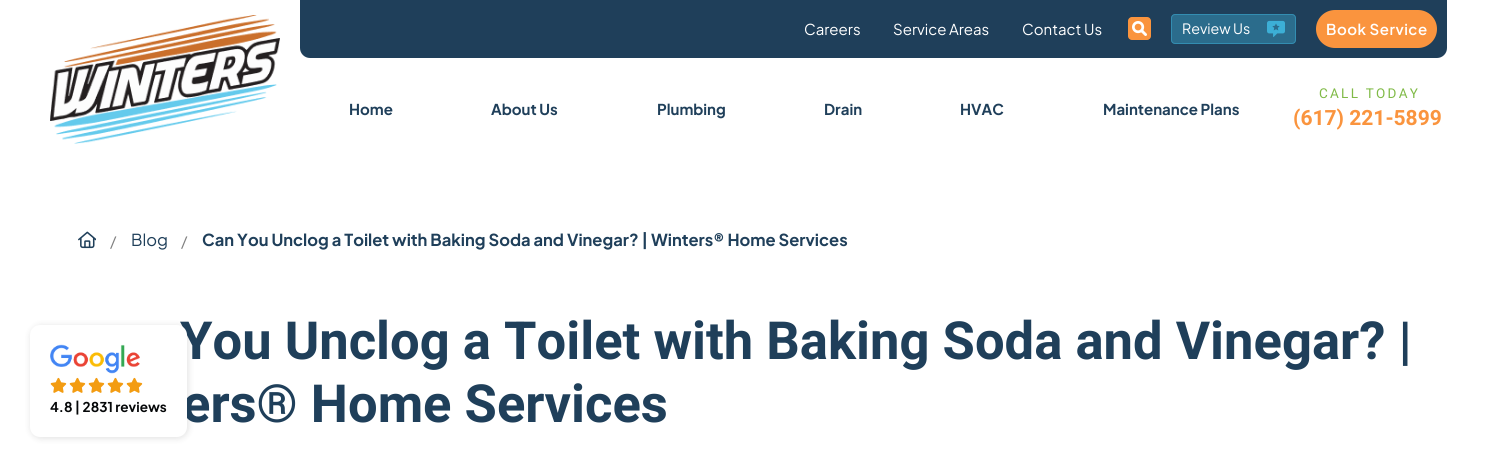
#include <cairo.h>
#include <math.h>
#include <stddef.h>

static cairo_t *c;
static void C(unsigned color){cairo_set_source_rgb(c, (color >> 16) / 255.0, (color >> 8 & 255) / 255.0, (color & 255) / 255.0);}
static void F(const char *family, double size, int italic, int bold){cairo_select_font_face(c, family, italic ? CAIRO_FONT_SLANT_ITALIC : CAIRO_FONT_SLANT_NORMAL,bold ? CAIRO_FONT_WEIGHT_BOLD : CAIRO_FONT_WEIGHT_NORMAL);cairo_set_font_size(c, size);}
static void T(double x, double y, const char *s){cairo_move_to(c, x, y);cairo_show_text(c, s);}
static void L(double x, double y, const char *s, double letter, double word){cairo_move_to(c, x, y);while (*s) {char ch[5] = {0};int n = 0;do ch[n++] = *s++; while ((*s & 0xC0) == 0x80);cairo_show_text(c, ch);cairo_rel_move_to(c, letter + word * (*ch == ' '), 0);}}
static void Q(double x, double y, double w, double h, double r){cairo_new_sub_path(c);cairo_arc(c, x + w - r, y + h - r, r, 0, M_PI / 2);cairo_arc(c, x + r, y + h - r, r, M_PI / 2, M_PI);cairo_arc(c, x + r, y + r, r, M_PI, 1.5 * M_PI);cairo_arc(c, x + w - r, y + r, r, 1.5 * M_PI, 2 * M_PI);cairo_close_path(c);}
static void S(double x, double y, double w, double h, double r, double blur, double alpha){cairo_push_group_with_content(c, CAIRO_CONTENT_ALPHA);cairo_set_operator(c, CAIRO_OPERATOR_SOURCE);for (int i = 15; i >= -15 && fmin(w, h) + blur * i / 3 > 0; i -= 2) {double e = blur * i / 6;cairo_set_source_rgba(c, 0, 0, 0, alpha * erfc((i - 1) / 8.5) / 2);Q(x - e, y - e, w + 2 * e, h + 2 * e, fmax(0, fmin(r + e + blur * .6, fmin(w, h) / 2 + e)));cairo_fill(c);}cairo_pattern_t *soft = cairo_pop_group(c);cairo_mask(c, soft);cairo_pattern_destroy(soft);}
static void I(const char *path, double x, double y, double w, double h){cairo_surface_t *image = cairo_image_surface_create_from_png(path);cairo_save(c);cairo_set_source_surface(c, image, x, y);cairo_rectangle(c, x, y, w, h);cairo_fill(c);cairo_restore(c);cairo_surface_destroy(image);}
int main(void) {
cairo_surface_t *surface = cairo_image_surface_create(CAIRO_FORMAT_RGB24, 1497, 467);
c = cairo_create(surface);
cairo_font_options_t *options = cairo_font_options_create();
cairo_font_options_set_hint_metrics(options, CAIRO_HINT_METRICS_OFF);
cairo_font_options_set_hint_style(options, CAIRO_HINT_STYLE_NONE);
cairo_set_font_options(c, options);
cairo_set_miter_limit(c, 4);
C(0xffffff);
cairo_paint(c);
I("1.png",50,15,230,129);
C(0x1f3f5a);
cairo_new_path(c);
cairo_move_to(c,300,0);
cairo_line_to(c,1447,0);
cairo_line_to(c,1447,48);
cairo_curve_to(c,1447,53.5,1442.5,58,1437,58);
cairo_line_to(c,310,58);
cairo_curve_to(c,304.5,58,300,53.5,300,48);
cairo_close_path(c);
cairo_fill(c);
F("Plus Jakarta Sans",15,0,0);
C(0xffffff);
T(804,35,"Careers");
T(893,35,"Service Areas");
T(1022,35,"Contact Us");
C(0xfa943e);
Q(1128,17,23,23,4);
cairo_fill(c);
I("2.png",1132,21,15,15);
C(0x2b6c8c);
Q(1171,14,125,30,4);
cairo_fill(c);
Q(1171.5,14.5,124,29,3.5);
cairo_set_source_rgba(c,0.235,0.686,0.839,0.5);
cairo_set_line_width(c,1);
cairo_stroke(c);
F("Plus Jakarta Sans",14.25,0,0);
C(0xffffff);
T(1182,34,"Review Us");
I("3.png",1267,20,18,17);
C(0xfa943e);
Q(1316,10,121,38,19);
cairo_fill(c);
F("Plus Jakarta Sans SemiBold",15,0,0);
C(0xffffff);
L(1326,35,"Book Service",.5,0);
F("Plus Jakarta Sans",15,0,1);
C(0x1f3f5a);
T(349,115,"Home");
T(491,115,"About Us");
T(657,115,"Plumbing");
T(824,115,"Drain");
T(960,115,"HVAC");
T(1103,115,"Maintenance Plans");
F("Heebo",13.5,0,0);
C(0x80ba47);
L(1319,98,"CALL TODAY",2.25,0);
F("Heebo",21,0,1);
C(0xfa943e);
T(1293,125,"(617) 221-5899");
C(0x000000);
S(31,326,157,112,10,3.5,.13);
F("Heebo",52.5,0,1);
C(0x1f3f5a);
T(180,359,"You Unclog a Toilet with Baking Soda and Vinegar? |");
T(182,422,"ers® Home Services");
C(0xffffff);
Q(30,325,157,112,10);
cairo_fill(c);
I("4.png",50,344,90,30);
I("5.png",50,377,17,16);
I("5.png",69,377,17,16);
I("5.png",88,377,17,16);
I("5.png",107,377,17,16);
I("5.png",126,377,17,16);
F("Plus Jakarta Sans",13.5,0,1);
C(0x050708);
T(50,412,"4.8 | 2831 reviews");
I("6.png",78,231,18,18);
F("Plus Jakarta Sans",15,0,0);
C(0x808080);
T(110,247,"/");
F("Plus Jakarta Sans",16.5,0,0);
C(0x1f3f5a);
T(131,246,"Blog");
F("Plus Jakarta Sans",15,0,0);
C(0x808080);
T(181,247,"/");
F("Plus Jakarta Sans",16.5,0,1);
C(0x1f3f5a);
T(202,246,"Can You Unclog a Toilet with Baking Soda and Vinegar? | Winters® Home Services");
cairo_surface_write_to_png(surface, "o.png");
cairo_font_options_destroy(options);
cairo_destroy(c);
cairo_surface_destroy(surface);
return 0;
}
